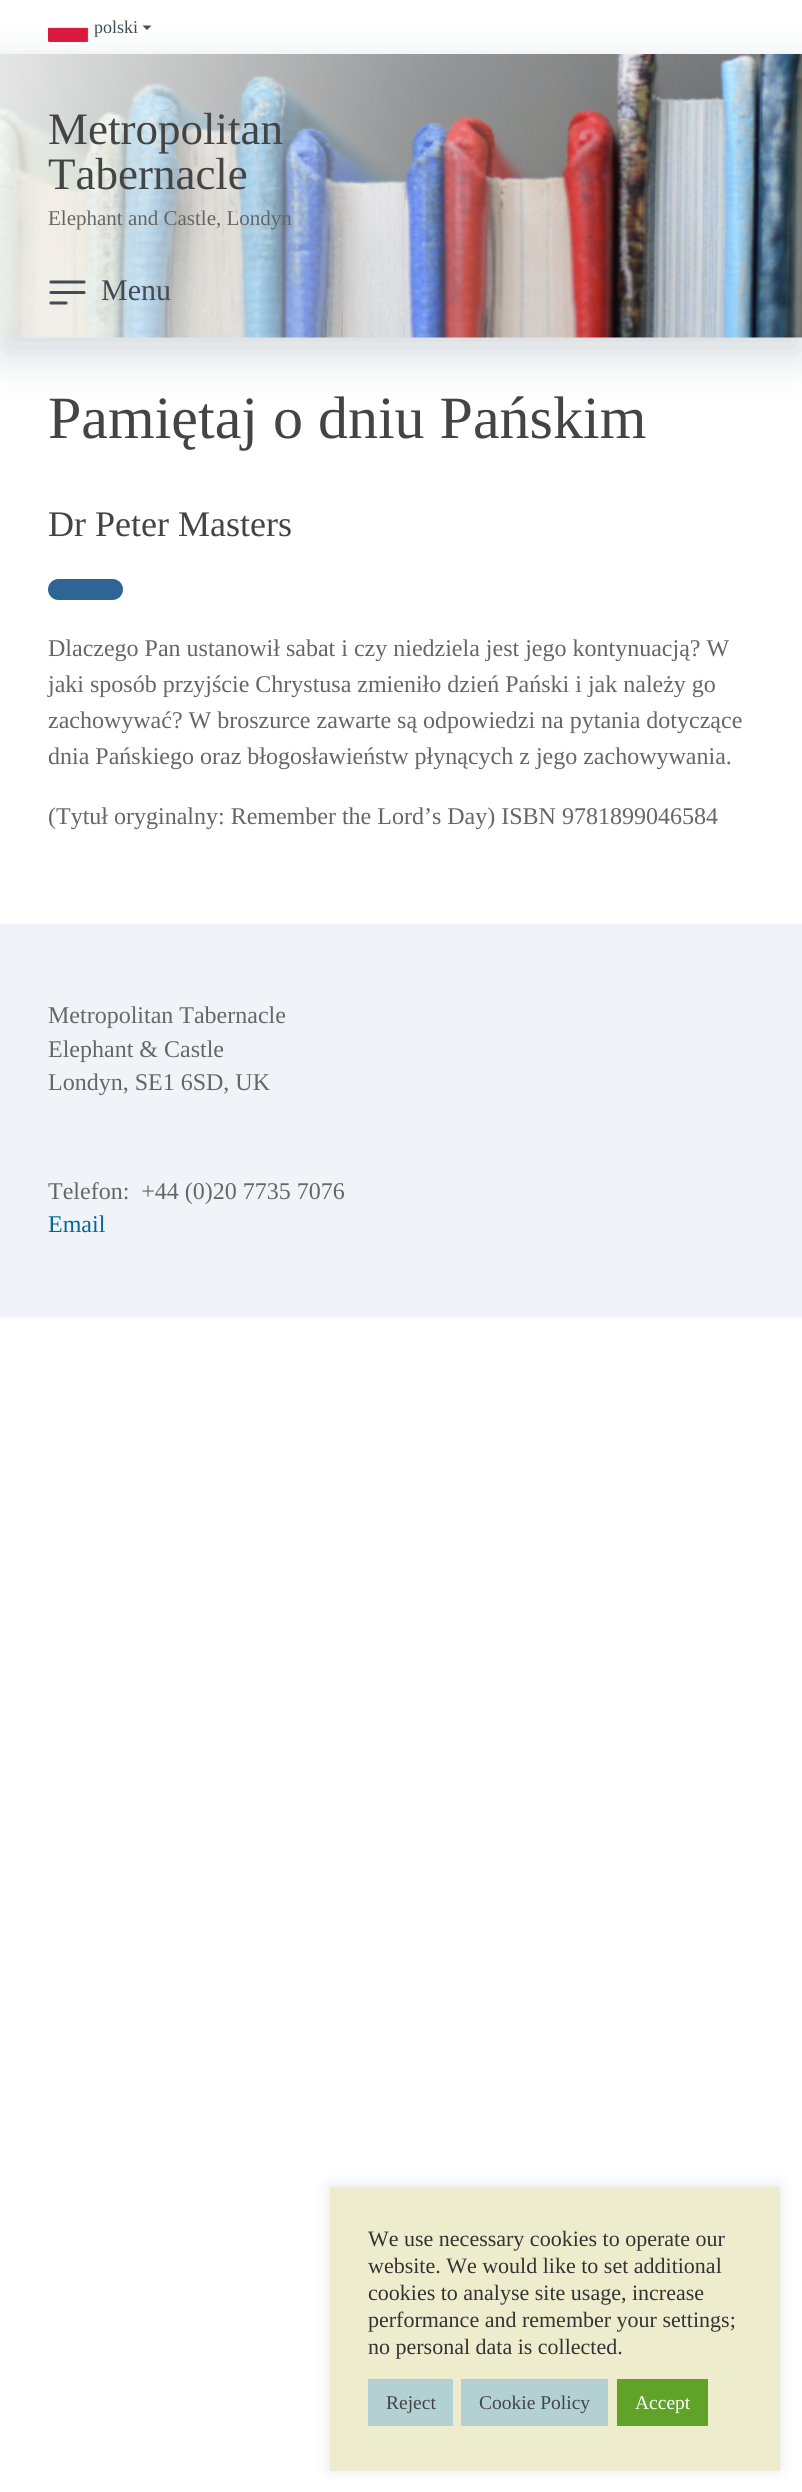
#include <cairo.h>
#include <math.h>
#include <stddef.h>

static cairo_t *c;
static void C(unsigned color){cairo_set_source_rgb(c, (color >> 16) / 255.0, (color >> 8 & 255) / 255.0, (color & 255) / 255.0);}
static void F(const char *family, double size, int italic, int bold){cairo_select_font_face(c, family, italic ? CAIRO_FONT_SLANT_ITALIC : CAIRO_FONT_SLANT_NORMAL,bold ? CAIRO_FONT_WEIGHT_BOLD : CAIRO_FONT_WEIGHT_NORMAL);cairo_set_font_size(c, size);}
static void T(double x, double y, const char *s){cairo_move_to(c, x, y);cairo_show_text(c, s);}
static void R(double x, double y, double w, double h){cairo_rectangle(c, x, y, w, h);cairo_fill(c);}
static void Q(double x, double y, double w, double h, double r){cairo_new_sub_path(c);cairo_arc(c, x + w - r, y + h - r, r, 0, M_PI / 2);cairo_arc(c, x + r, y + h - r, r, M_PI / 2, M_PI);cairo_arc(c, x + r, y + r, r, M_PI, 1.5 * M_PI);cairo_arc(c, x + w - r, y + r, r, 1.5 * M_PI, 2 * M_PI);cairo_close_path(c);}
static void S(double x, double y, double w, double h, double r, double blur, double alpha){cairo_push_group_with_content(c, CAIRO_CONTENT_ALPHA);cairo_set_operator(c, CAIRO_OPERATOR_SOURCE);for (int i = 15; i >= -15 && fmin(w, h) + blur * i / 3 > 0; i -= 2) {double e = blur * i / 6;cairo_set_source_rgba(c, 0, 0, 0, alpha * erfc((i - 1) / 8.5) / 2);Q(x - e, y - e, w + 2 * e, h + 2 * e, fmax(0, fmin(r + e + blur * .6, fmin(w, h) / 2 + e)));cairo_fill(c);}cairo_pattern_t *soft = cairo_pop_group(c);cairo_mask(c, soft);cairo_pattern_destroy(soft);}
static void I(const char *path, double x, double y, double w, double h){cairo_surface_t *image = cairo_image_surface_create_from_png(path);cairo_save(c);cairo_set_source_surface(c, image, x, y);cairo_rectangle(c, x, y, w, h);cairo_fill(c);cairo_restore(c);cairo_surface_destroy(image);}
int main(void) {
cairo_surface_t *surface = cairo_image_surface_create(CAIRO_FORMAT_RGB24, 802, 2492);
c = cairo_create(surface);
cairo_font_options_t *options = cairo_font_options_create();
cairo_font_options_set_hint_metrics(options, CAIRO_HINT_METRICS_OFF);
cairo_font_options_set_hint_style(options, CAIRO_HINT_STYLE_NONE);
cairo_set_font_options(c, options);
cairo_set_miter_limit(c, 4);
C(0xffffff);
cairo_paint(c);
I("1.png",48,27,41,15);
F("Liberation Serif",18,0,0);
C(0x414b54);
T(94,33,"polski");
cairo_new_path(c);
cairo_move_to(c,142.5,25.5);
cairo_line_to(c,151.5,25.5);
cairo_line_to(c,147,30);
cairo_close_path(c);
cairo_fill(c);
C(0xa9b3bb);
S(0,69,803,284,0,22.5,.5);
I("2.png",0,54,802,284);
F("Liberation Serif",45,0,0);
C(0x444444);
T(48,144,"Metropolitan");
T(48,189,"Tabernacle");
F("Liberation Serif",21,0,0);
C(0x666666);
T(48,225,"Elephant and Castle, Londyn");
I("3.png",49,280,37,25);
F("Liberation Serif",30,0,0);
C(0x414b54);
T(101,300,"Menu");
F("Liberation Serif",60,0,0);
C(0x444444);
T(48,438,"Pamiętaj o dniu Pańskim");
F("Liberation Serif",36,0,0);
T(48,536,"Dr Peter Masters");
C(0x2d6595);
Q(48,579,75,21,10.5);
cairo_fill(c);
F("Liberation Serif",24,0,0);
C(0x666666);
T(48,656,"Dlaczego Pan ustanowił sabat i czy niedziela jest jego kontynuacją? W");
T(48,692,"jaki sposób przyjście Chrystusa zmieniło dzień Pański i jak należy go");
T(48,728,"zachowywać? W broszurce zawarte są odpowiedzi na pytania dotyczące");
T(48,764,"dnia Pańskiego oraz błogosławieństw płynących z jego zachowywania.");
T(48,824,"(Tytuł oryginalny: Remember the Lord’s Day) ISBN 9781899046584");
C(0xf0f4f8);
R(0,924,802,393);
C(0x666666);
T(48,1023,"Metropolitan Tabernacle");
T(48,1057,"Elephant & Castle");
T(48,1090,"Londyn, SE1 6SD, UK");
T(48,1199,"Telefon:  +44 (0)20 7735 7076");
C(0x00679a);
T(48,1232,"Email");
C(0xacabab);
S(330,2186,450,283,0,7.5,.3);
C(0xededce);
R(330,2187,450,284);
F("Liberation Serif",22,0,0);
C(0x333333);
T(368,2246,"We use necessary cookies to operate our");
T(368,2273,"website. We would like to set additional");
T(368,2300,"cookies to analyse site usage, increase");
T(368,2327,"performance and remember your settings;");
T(368,2354,"no personal data is collected.");
C(0xb3d1d3);
R(368,2379,85,47);
F("Liberation Serif",19.5,0,0);
C(0x444444);
T(386,2409,"Reject");
C(0xb3d1d3);
R(461,2379,147,47);
C(0x444444);
T(479,2409,"Cookie Policy");
C(0x61a229);
R(617,2379,91,47);
C(0xffffff);
T(635,2409,"Accept");
cairo_surface_write_to_png(surface, "o.png");
cairo_font_options_destroy(options);
cairo_destroy(c);
cairo_surface_destroy(surface);
return 0;
}
